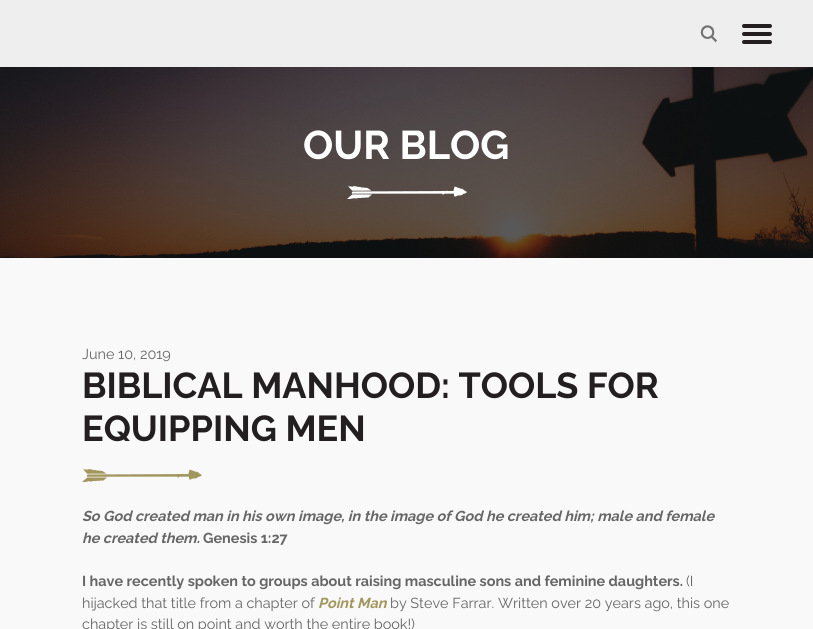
#include <cairo.h>
#include <math.h>
#include <stddef.h>

static cairo_t *c;
static void C(unsigned color){cairo_set_source_rgb(c, (color >> 16) / 255.0, (color >> 8 & 255) / 255.0, (color & 255) / 255.0);}
static void F(const char *family, double size, int italic, int bold){cairo_select_font_face(c, family, italic ? CAIRO_FONT_SLANT_ITALIC : CAIRO_FONT_SLANT_NORMAL,bold ? CAIRO_FONT_WEIGHT_BOLD : CAIRO_FONT_WEIGHT_NORMAL);cairo_set_font_size(c, size);}
static void T(double x, double y, const char *s){cairo_move_to(c, x, y);cairo_show_text(c, s);}
static void R(double x, double y, double w, double h){cairo_rectangle(c, x, y, w, h);cairo_fill(c);}
static void Q(double x, double y, double w, double h, double r){cairo_new_sub_path(c);cairo_arc(c, x + w - r, y + h - r, r, 0, M_PI / 2);cairo_arc(c, x + r, y + h - r, r, M_PI / 2, M_PI);cairo_arc(c, x + r, y + r, r, M_PI, 1.5 * M_PI);cairo_arc(c, x + w - r, y + r, r, 1.5 * M_PI, 2 * M_PI);cairo_close_path(c);}
static void I(const char *path, double x, double y, double w, double h){cairo_surface_t *image = cairo_image_surface_create_from_png(path);cairo_save(c);cairo_set_source_surface(c, image, x, y);cairo_rectangle(c, x, y, w, h);cairo_fill(c);cairo_restore(c);cairo_surface_destroy(image);}
int main(void) {
cairo_surface_t *surface = cairo_image_surface_create(CAIRO_FORMAT_RGB24, 813, 629);
c = cairo_create(surface);
cairo_font_options_t *options = cairo_font_options_create();
cairo_font_options_set_hint_metrics(options, CAIRO_HINT_METRICS_OFF);
cairo_font_options_set_hint_style(options, CAIRO_HINT_STYLE_NONE);
cairo_set_font_options(c, options);
cairo_set_miter_limit(c, 4);
C(0xf9f9f9);
cairo_paint(c);
C(0xeeeeee);
R(0,0,813,67);
I("1.png",700,25,17,18);
C(0x231f20);
Q(742,24,30,4,2);
cairo_fill(c);
Q(742,32,30,4,2);
cairo_fill(c);
Q(742,40,30,4,2);
cairo_fill(c);
I("2.png",0,67,813,191);
F("Raleway",40,0,1);
C(0xffffff);
T(303,159,"OUR BLOG");
I("3.png",347,186,120,13);
F("Raleway",14.4,0,0);
C(0x666666);
T(82,359,"June 10, 2019");
F("Raleway",36,0,1);
C(0x231f20);
T(82,398,"BIBLICAL MANHOOD: TOOLS FOR");
T(82,441,"EQUIPPING MEN");
I("4.png",82,469,120,14);
F("Raleway",14.4,1,1);
C(0x666666);
T(82,521,"So God created man in his own image, in the image of God he created him; male and female");
T(82,543,"he created them.");
F("Raleway",14.4,0,1);
T(203,543,"Genesis 1:27");
T(82,586,"I have recently spoken to groups about raising masculine sons and feminine daughters.");
F("Raleway",14.4,0,0);
T(686,586,"(I");
T(82,608,"hijacked that title from a chapter of");
F("Raleway",14.4,1,1);
C(0xa2965f);
T(318,608,"Point Man");
F("Raleway",14.4,0,0);
C(0x666666);
T(390,608,"by Steve Farrar. Written over 20 years ago, this one");
T(82,629,"chapter is still on point and worth the entire book!)");
cairo_surface_write_to_png(surface, "o.png");
cairo_font_options_destroy(options);
cairo_destroy(c);
cairo_surface_destroy(surface);
return 0;
}
